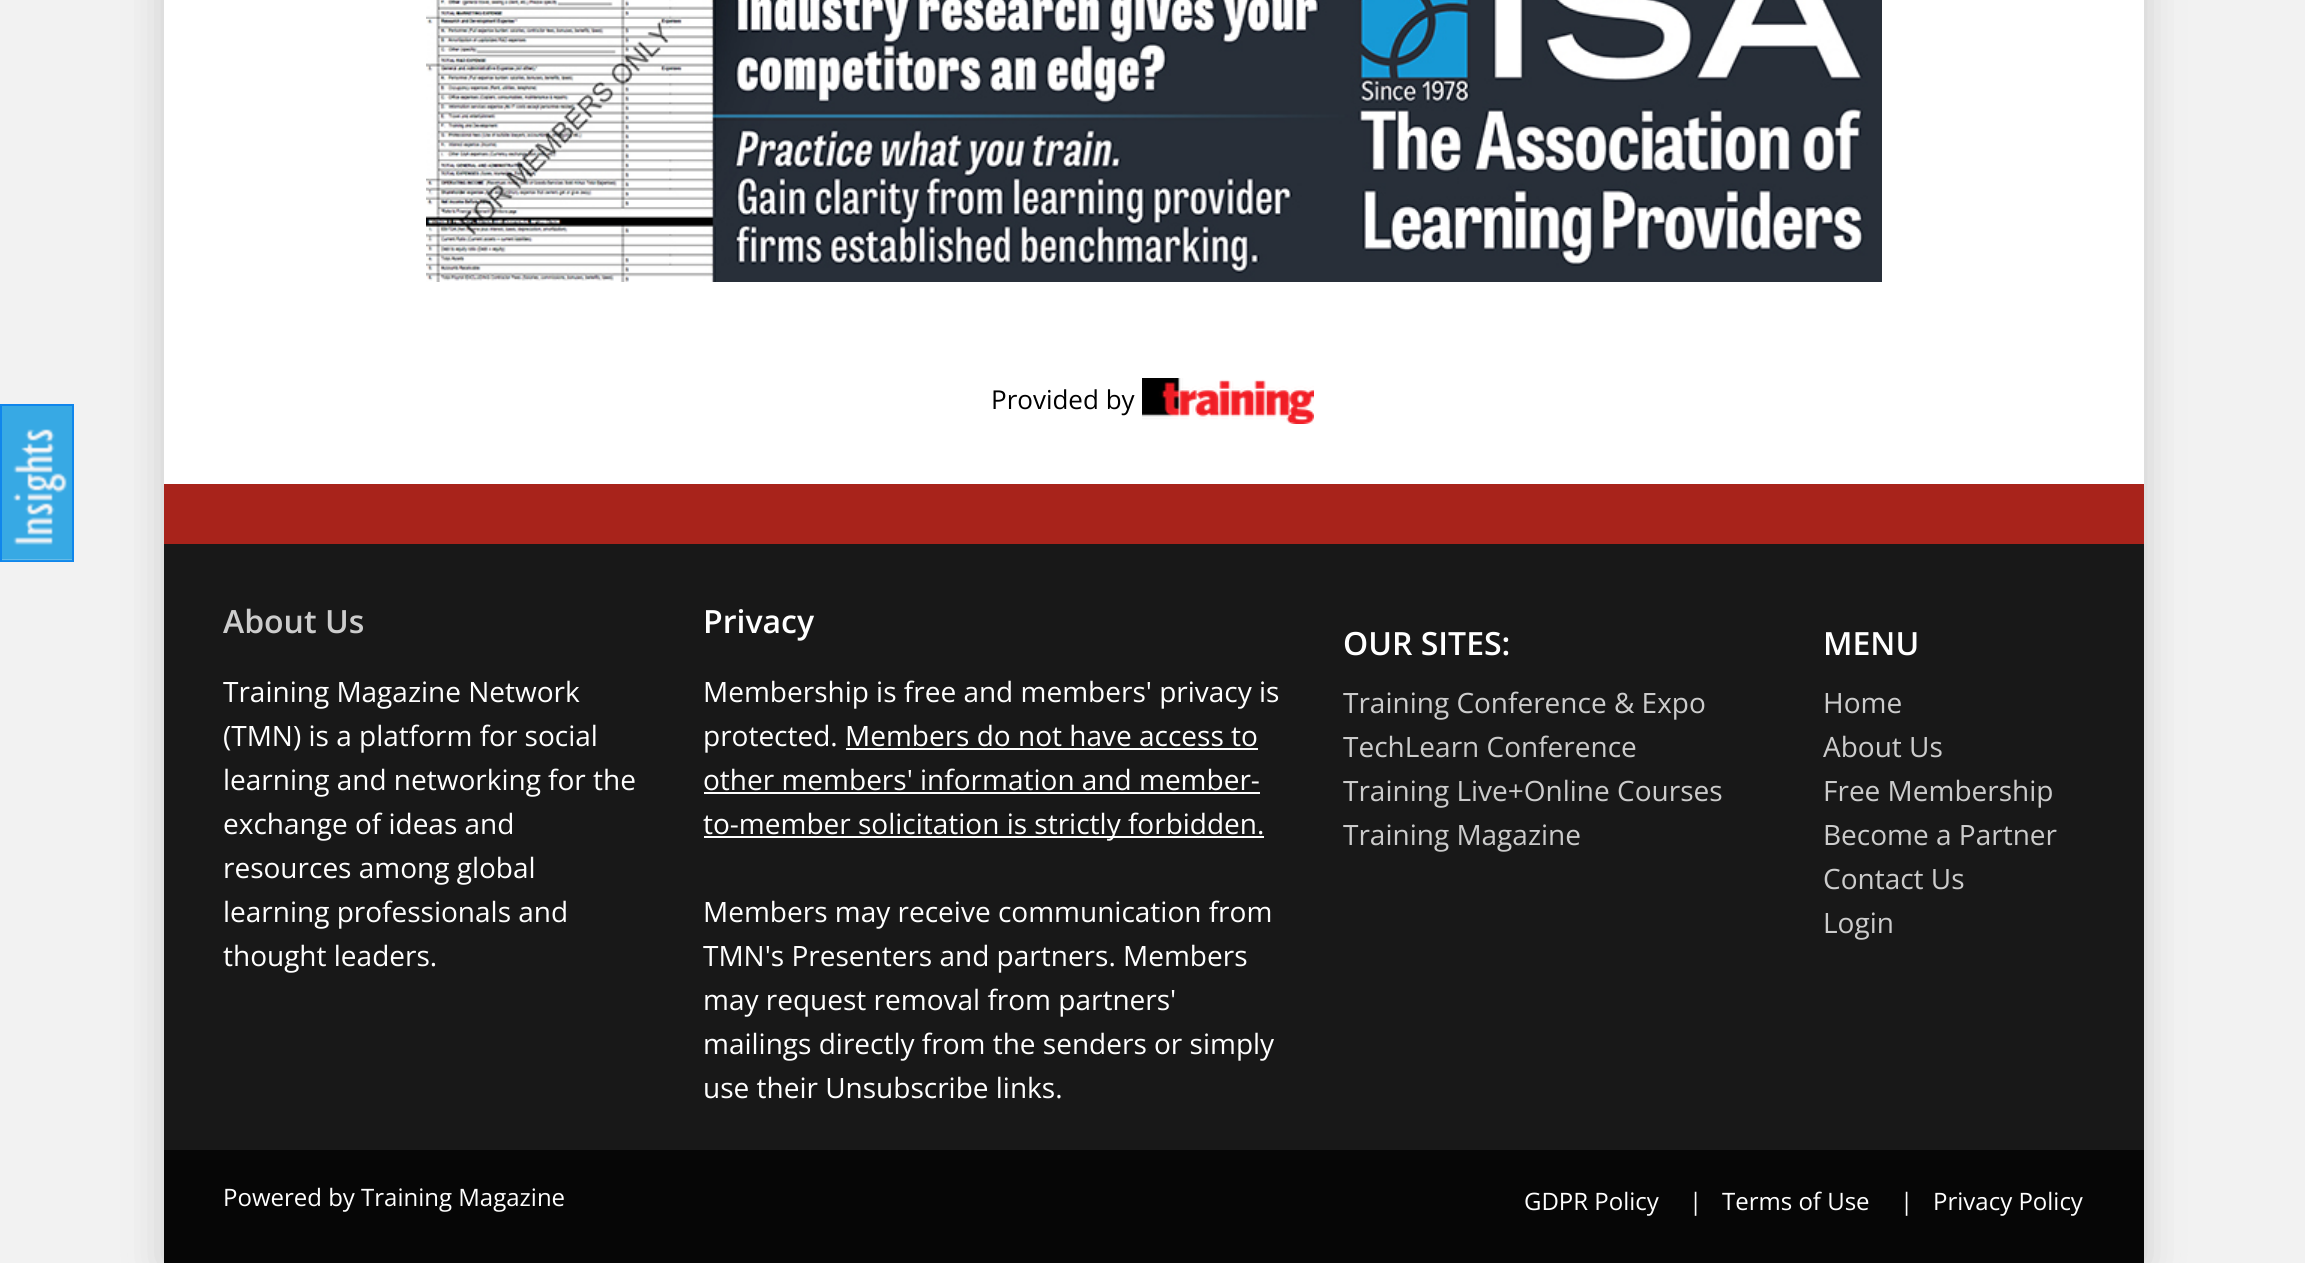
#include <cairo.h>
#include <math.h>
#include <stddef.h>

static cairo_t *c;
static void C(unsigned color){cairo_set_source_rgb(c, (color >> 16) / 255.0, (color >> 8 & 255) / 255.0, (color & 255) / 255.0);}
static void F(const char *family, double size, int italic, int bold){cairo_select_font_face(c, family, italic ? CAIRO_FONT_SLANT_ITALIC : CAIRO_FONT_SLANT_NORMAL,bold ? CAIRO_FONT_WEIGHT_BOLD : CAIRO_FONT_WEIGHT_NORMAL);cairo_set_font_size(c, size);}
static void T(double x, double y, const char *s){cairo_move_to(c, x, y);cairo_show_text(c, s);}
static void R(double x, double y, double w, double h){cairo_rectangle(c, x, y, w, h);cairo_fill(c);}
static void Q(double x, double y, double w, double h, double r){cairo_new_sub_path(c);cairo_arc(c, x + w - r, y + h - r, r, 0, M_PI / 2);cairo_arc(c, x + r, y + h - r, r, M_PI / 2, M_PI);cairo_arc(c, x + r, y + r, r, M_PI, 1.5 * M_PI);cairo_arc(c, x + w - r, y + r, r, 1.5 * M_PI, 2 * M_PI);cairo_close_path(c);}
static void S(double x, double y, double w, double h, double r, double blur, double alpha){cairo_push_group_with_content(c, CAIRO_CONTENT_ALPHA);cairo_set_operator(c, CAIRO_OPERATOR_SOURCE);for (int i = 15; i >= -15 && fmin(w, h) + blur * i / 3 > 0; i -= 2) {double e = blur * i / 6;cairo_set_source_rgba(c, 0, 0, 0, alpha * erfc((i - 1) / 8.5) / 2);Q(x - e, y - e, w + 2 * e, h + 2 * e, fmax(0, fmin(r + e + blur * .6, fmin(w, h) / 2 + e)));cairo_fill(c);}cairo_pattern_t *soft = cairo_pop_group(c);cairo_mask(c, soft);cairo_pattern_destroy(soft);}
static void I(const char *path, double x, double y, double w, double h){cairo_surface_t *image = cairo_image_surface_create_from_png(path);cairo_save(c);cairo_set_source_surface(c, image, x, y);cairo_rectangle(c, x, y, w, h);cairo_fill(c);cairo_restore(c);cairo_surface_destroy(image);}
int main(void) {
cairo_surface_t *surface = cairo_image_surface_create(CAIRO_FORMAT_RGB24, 2305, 1263);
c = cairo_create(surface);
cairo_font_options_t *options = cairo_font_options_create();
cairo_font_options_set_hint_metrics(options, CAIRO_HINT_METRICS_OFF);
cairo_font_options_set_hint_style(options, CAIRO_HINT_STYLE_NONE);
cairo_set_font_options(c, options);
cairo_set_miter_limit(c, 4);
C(0xf2f2f2);
cairo_paint(c);
cairo_rectangle(c,1,405,72,156);
C(0x1086ec);
cairo_stroke(c);
I("1.png",2,406,70,155);
C(0xcacaca);
S(164,-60,1980,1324,0,20,1);
C(0xffffff);
R(164,0,1980,484);
I("2.png",426,0,1456,282);
F("Open Sans",26,0,0);
C(0x000000);
T(991,409,"Provided by");
I("3.png",1142,378,172,46);
C(0x181818);
R(164,544,1980,606);
C(0xa8231b);
R(164,484,1980,60);
F("Open Sans SemiBold",32,0,0);
C(0xcccccc);
T(223,633,"About Us");
F("Open Sans",28,0,0);
C(0xffffff);
T(223,702,"Training Magazine Network");
T(223,746,"(TMN) is a platform for social");
T(223,790,"learning and networking for the");
T(223,834,"exchange of ideas and");
T(223,878,"resources among global");
T(223,922,"learning professionals and");
T(223,966,"thought leaders.");
F("Open Sans SemiBold",32,0,0);
T(703,633,"Privacy");
F("Open Sans",28,0,0);
T(703,702,"Membership is free and members' privacy is");
T(703,746,"protected. Members do not have access to");
T(703,790,"other members' information and member-");
R(846,748,412,2);
R(704,792,556,2);
R(704,836,560,2);
T(703,834,"to-member solicitation is strictly forbidden.");
T(703,922,"Members may receive communication from");
T(703,966,"TMN's Presenters and partners. Members");
T(703,1010,"may request removal from partners'");
T(703,1054,"mailings directly from the senders or simply");
T(703,1098,"use their Unsubscribe links.");
F("Open Sans SemiBold",32,0,0);
T(1343,655,"OUR SITES:");
F("Open Sans",28,0,0);
C(0xcccccc);
T(1343,713,"Training Conference & Expo");
T(1343,757,"TechLearn Conference");
T(1343,801,"Training Live+Online Courses");
T(1343,845,"Training Magazine");
F("Open Sans SemiBold",32,0,0);
C(0xffffff);
T(1823,655,"MENU");
F("Open Sans",28,0,0);
C(0xcccccc);
T(1823,713,"Home");
T(1823,757,"About Us");
T(1823,801,"Free Membership");
T(1823,845,"Become a Partner");
T(1823,889,"Contact Us");
T(1823,933,"Login");
C(0x060606);
R(164,1150,1980,113);
F("Open Sans",24,0,0);
C(0xffffff);
T(223,1206,"Powered by Training Magazine");
T(1524,1210,"GDPR Policy");
T(1689,1210,"|");
T(1722,1210,"Terms of Use");
T(1900,1210,"|");
T(1933,1210,"Privacy Policy");
cairo_surface_write_to_png(surface, "o.png");
cairo_font_options_destroy(options);
cairo_destroy(c);
cairo_surface_destroy(surface);
return 0;
}
